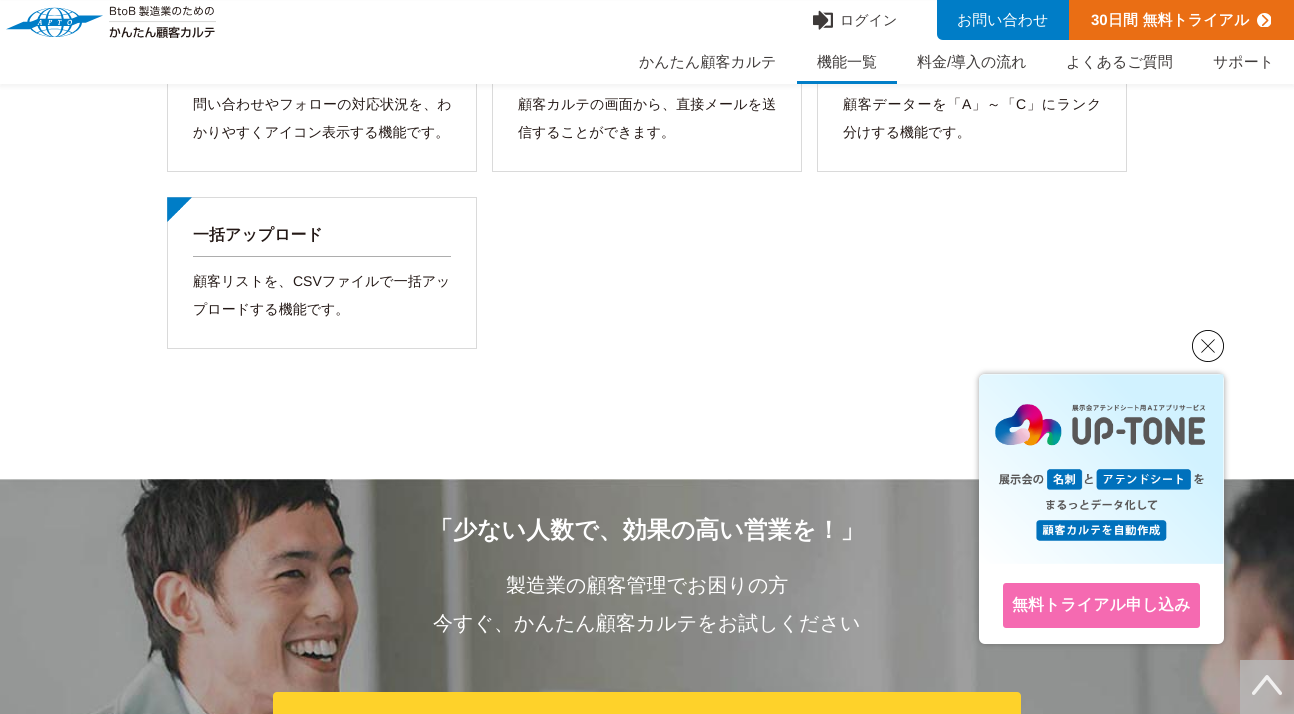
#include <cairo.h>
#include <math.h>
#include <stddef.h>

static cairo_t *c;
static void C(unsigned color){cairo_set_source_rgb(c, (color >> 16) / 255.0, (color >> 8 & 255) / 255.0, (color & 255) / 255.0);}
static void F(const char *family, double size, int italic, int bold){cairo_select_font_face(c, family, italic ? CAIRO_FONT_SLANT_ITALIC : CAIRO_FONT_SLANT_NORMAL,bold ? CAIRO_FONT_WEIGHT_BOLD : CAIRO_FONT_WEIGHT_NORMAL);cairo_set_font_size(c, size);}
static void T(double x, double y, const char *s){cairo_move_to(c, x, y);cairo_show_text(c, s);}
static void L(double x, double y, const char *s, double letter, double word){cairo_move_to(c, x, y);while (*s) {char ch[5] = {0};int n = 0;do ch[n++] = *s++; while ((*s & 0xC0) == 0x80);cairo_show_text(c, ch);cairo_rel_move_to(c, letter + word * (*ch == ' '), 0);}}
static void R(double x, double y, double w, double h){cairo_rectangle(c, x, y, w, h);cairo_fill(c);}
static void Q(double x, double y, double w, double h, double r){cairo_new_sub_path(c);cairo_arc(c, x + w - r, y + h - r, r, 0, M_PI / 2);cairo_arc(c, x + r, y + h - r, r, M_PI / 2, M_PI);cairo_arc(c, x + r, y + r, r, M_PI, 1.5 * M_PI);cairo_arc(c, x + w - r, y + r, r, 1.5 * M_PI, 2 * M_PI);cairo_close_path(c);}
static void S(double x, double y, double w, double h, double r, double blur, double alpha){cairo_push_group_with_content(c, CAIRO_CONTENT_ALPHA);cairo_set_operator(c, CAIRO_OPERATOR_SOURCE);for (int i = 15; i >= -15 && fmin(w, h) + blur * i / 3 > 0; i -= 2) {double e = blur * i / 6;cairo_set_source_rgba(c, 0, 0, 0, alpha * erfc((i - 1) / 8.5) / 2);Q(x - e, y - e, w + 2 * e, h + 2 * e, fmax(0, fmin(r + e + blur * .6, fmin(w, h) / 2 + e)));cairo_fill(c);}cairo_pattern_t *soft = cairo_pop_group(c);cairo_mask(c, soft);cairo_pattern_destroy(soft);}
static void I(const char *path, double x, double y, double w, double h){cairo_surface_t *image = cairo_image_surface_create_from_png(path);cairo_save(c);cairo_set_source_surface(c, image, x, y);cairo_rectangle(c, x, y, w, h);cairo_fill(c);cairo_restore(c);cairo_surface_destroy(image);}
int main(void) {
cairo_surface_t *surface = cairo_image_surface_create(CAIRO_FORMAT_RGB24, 1294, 714);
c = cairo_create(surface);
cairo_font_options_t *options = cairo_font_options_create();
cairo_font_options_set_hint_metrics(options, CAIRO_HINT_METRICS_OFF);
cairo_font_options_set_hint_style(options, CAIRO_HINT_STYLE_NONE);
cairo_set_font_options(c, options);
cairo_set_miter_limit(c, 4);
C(0xffffff);
cairo_paint(c);
cairo_rectangle(c,167.5,20.5,309,151);
C(0xdadada);
cairo_set_line_width(c,1);
cairo_stroke(c);
cairo_rectangle(c,492.5,20.5,309,151);
cairo_stroke(c);
cairo_rectangle(c,817.5,20.5,309,151);
cairo_stroke(c);
C(0x000000);
S(0,3,1294,84,0,2,.05);
C(0xffffff);
R(0,1,1294,83);
I("1.png",6,6,210,32);
I("2.png",813,10,20,20);
F("WenQuanYi Zen Hei Medium",14,0,0);
C(0x3e3a39);
T(840,25,"ログイン");
C(0x007dc7);
cairo_new_path(c);
cairo_move_to(c,937,0);
cairo_line_to(c,1069,0);
cairo_line_to(c,1069,40);
cairo_line_to(c,943,40);
cairo_curve_to(c,939.5,40,937,37.5,937,34);
cairo_close_path(c);
cairo_fill(c);
F("WenQuanYi Zen Hei Medium",15,0,0);
C(0xffffff);
T(957,25,"お問い合わせ");
C(0xea6e14);
R(1069,0,225,40);
F("Liberation Sans",15,0,1);
C(0xffffff);
T(1091,25,"30");
F("WenQuanYi Zen Hei",15,0,1);
T(1108,25,"日間 無料トライアル");
I("3.png",1257,13,14,14);
F("WenQuanYi Zen Hei Medium",15,0,0);
C(0x3e3a39);
T(639,67,"かんたん顧客カルテ");
T(817,67,"機能一覧");
C(0x007dc7);
R(797,81,100,3);
C(0x3e3a39);
T(917,67,"料金");
F("Liberation Sans",15,0,0);
T(947,67,"/");
F("WenQuanYi Zen Hei Medium",15,0,0);
T(951,67,"導入の流れ");
T(1066,67,"よくあるご質問");
T(1213,67,"サポート");
F("WenQuanYi Zen Hei Medium",14,0,0);
C(0x231815);
L(193,109,"問い合わせやフォローの対応状況を、わ",.2,0);
T(193,137,"かりやすくアイコン表示する機能です。");
L(518,109,"顧客カルテの画面から、直接メールを送",.2,0);
T(518,137,"信することができます。");
L(843,109,"顧客データーを「",.75,0);
F("Liberation Sans",14,0,0);
L(962,109,"A",.75,0);
F("WenQuanYi Zen Hei Medium",14,0,0);
L(972,109,"」～「",.75,0);
F("Liberation Sans",14,0,0);
L(1016,109,"C",.75,0);
F("WenQuanYi Zen Hei Medium",14,0,0);
L(1027,109,"」にランク",.75,0);
T(843,137,"分けする機能です。");
cairo_rectangle(c,167.5,197.5,309,151);
C(0xdadada);
cairo_stroke(c);
I("4.png",167,197,25,25);
C(0xadadad);
R(193,256,258,1);
F("WenQuanYi Zen Hei",16,0,1);
C(0x231815);
T(193,240,"一括アップロード");
F("WenQuanYi Zen Hei Medium",14,0,0);
T(193,286,"顧客リストを、");
F("Liberation Sans",14,0,0);
T(293,286,"CSV");
F("WenQuanYi Zen Hei Medium",14,0,0);
T(322,286,"ファイルで一括アッ");
T(193,314,"プロードする機能です。");
I("5.png",0,479,1294,235);
F("WenQuanYi Zen Hei",24,0,1);
C(0xffffff);
T(429,538,"「少ない人数で、効果の高い営業を！」");
F("WenQuanYi Zen Hei Medium",20,0,0);
T(506,592,"製造業の顧客管理でお困りの方");
T(433,630,"今すぐ、かんたん顧客カルテをお試しください");
C(0xfed22a);
Q(273,692,748,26,4);
cairo_fill(c);
I("6.png",1192,330,32,32);
C(0x525252);
S(979,374,245,270,6,3,.56);
C(0xffffff);
Q(979,374,245,270,6);
cairo_fill(c);
I("7.png",979,374,245,190);
C(0xf56ab1);
Q(1003,583,197,45,3);
cairo_fill(c);
F("WenQuanYi Zen Hei",16,0,1);
C(0xffffff);
T(1012,610,"無料トライアル申し込み");
cairo_set_source_rgba(c,0.718,0.718,0.718,0.8);
R(1240,660,54,54);
I("8.png",1252,675,30,20);
cairo_surface_write_to_png(surface, "o.png");
cairo_font_options_destroy(options);
cairo_destroy(c);
cairo_surface_destroy(surface);
return 0;
}
